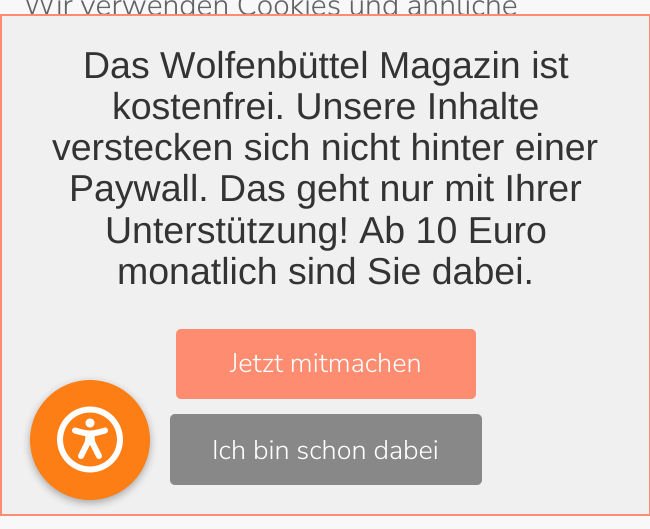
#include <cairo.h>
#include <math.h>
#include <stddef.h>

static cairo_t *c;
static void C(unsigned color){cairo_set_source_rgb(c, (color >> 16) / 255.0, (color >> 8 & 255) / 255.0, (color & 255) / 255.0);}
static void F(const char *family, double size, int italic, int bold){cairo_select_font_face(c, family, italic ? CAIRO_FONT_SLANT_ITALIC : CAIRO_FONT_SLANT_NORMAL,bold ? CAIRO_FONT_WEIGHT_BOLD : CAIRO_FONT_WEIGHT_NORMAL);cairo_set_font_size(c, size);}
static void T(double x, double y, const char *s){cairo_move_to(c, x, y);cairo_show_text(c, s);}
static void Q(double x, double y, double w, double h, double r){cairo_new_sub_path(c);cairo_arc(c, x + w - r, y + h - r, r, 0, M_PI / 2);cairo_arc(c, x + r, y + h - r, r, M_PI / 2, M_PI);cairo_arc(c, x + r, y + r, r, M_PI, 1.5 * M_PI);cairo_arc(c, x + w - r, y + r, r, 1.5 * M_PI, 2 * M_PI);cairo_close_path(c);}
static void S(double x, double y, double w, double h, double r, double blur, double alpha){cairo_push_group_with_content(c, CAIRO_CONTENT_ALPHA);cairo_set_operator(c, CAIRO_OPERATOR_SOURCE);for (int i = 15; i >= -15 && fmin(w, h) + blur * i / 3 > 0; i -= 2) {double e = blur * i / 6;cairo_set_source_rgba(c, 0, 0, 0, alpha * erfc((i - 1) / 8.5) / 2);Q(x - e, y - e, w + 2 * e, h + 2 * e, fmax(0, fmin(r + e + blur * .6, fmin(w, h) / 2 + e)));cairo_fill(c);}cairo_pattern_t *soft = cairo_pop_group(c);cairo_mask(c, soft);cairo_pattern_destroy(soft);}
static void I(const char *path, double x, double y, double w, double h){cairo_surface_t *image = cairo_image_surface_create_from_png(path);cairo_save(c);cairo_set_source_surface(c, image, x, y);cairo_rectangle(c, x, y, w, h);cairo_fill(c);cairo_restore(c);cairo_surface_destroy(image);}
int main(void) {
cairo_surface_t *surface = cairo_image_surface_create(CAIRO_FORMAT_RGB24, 650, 529);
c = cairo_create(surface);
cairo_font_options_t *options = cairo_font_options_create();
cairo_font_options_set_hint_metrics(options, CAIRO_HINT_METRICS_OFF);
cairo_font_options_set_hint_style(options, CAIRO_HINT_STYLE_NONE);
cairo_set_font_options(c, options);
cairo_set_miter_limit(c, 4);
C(0xf8f8f8);
cairo_paint(c);
F("Nunito Sans ExtraLight",30,0,0);
C(0x616367);
T(23,15,"Wir verwenden Cookies und ähnliche");
C(0xf0f0f0);
cairo_rectangle(c,1,15,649,500);
cairo_fill_preserve(c);
C(0xfe8c71);
cairo_stroke(c);
F("Liberation Sans",37.5,0,0);
C(0x333333);
T(83,78,"Das Wolfenbüttel Magazin ist");
T(112,119,"kostenfrei. Unsere Inhalte");
T(52,160,"verstecken sich nicht hinter einer");
T(69,201,"Paywall. Das geht nur mit Ihrer");
T(105,243,"Unterstützung! Ab 10 Euro");
T(117,284,"monatlich sind Sie dabei.");
C(0xfe8c71);
Q(176,329,300,70,5);
cairo_fill(c);
F("Nunito Sans ExtraLight",27,0,0);
C(0xffffff);
T(230,372,"Jetzt mitmachen");
C(0x888888);
Q(170,414,312,71,5);
cairo_fill(c);
C(0xffffff);
T(212,459,"Ich bin schon dabei");
C(0x000000);
S(30,383,120,120,60,4,.3);
C(0xfd7e14);
cairo_arc(c,90,440,60,0,2 * M_PI);
cairo_fill(c);
I("1.png",57,406,66,67);
cairo_surface_write_to_png(surface, "o.png");
cairo_font_options_destroy(options);
cairo_destroy(c);
cairo_surface_destroy(surface);
return 0;
}
